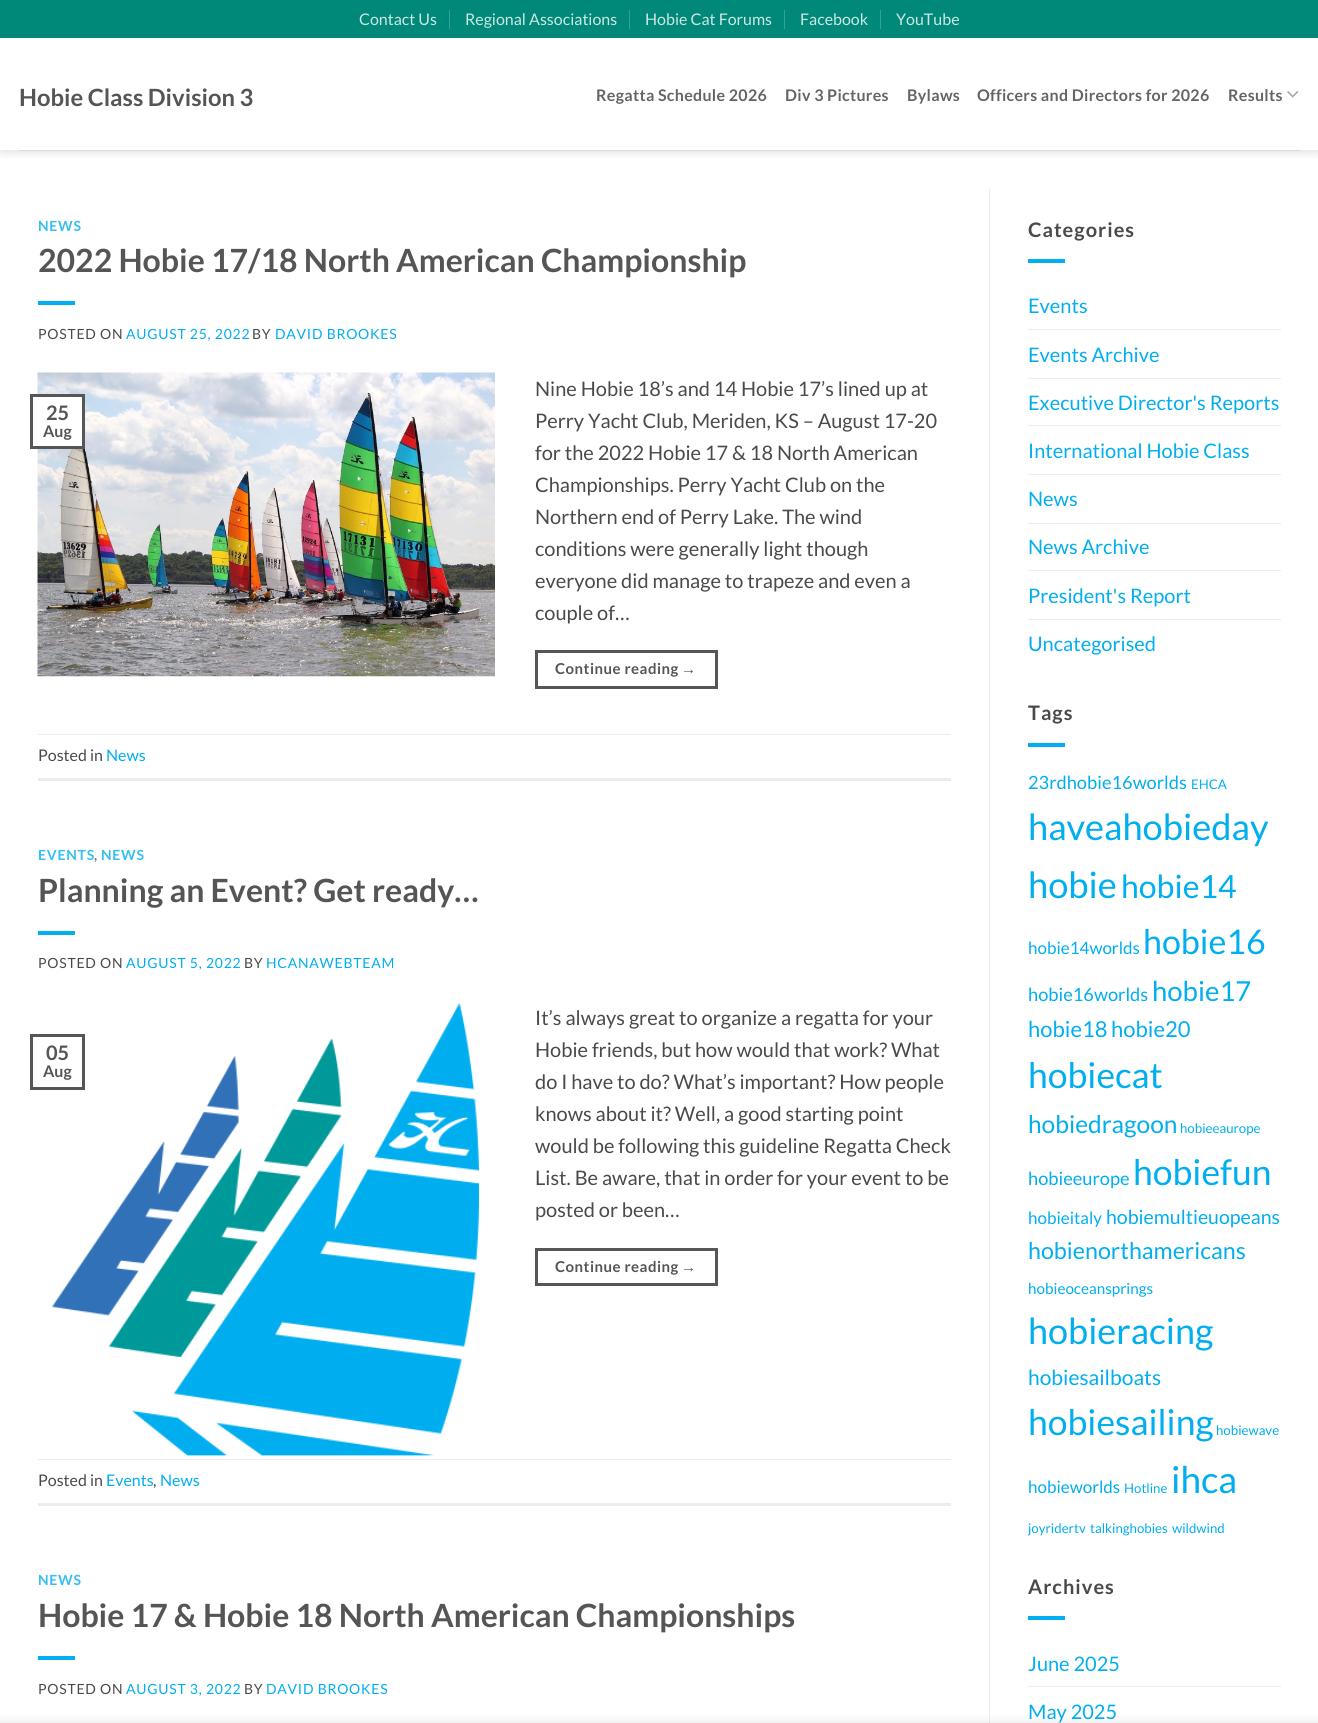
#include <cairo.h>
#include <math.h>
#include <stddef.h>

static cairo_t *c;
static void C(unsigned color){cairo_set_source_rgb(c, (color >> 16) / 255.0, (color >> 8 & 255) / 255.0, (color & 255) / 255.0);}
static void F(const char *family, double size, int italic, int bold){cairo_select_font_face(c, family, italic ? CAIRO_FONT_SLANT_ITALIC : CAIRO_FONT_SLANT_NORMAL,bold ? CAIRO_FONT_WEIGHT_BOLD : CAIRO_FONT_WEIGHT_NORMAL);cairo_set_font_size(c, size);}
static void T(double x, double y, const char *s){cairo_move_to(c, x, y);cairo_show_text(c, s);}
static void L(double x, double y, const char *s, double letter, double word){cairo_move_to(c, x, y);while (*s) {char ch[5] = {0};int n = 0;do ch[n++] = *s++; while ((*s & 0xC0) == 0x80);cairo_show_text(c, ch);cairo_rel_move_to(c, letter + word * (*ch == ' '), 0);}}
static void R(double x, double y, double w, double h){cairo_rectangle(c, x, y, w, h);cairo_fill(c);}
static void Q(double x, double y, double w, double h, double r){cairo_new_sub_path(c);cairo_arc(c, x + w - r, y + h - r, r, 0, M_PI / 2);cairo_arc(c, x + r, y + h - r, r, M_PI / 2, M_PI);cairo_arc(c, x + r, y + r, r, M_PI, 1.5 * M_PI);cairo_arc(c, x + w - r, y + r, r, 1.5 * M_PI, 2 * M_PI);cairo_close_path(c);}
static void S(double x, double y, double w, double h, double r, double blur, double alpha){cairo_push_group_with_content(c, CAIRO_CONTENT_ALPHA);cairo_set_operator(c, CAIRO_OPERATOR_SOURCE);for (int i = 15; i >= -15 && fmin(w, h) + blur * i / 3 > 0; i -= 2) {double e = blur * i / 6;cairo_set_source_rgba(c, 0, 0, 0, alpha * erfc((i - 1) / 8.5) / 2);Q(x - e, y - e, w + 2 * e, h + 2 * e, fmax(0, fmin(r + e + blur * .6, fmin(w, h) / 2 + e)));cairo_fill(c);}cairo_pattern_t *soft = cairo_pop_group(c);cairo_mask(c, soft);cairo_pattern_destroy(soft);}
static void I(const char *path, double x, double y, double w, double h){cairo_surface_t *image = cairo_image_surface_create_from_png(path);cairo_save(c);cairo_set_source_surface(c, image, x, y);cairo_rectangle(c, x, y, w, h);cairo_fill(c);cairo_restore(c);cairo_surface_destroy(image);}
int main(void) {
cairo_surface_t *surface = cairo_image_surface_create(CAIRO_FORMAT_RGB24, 1318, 1723);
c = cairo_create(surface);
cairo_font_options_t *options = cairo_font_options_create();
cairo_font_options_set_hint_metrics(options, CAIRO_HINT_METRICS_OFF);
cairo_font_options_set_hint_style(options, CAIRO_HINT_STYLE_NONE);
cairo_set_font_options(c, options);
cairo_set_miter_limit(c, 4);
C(0xffffff);
cairo_paint(c);
cairo_save(c);
cairo_rectangle(c,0,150,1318,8);
cairo_clip(c);
C(0x000000);
S(1,1,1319,150,0,6,.15);
cairo_restore(c);
C(0x008979);
R(0,0,1318,38);
F("Lato",16,0,0);
C(0xcce7e4);
T(359,25,"Contact Us");
C(0x33a194);
R(449,10,1,19);
C(0xcce7e4);
T(465,25,"Regional Associations");
C(0x33a194);
R(629,10,1,19);
C(0xcce7e4);
T(645,25,"Hobie Cat Forums");
C(0x33a194);
R(784,10,1,19);
C(0xcce7e4);
T(800,25,"Facebook");
C(0x33a194);
R(880,10,1,19);
C(0xcce7e4);
T(896,25,"YouTube");
F("Lato",23.75,0,1);
C(0x555555);
T(19,106,"Hobie Class Division 3");
F("Lato",16,0,1);
C(0x656565);
L(596,101,"Regatta Schedule 2026",.3,0);
L(785,101,"Div 3 Pictures",.3,0);
L(907,101,"Bylaws",.3,0);
L(977,101,"Officers and Directors for 2026",.3,0);
L(1228,101,"Results",.3,0);
I("1.png",1287,91,12,7);
C(0xdbdbdb);
R(19,150,1281,1);
F("Lato",14,0,1);
C(0x34bef2);
L(38,231,"NEWS",.75,0);
F("Lato",32,0,1);
C(0x555555);
T(38,272,"2022 Hobie 17/18 North American Championship");
C(0x01aeef);
R(38,301,37,4);
F("Lato",14,0,0);
C(0x4a4a4a);
L(38,339,"POSTED ON",.75,0);
C(0x01aeef);
L(126,339,"AUGUST 25, 2022",.75,0);
C(0x4a4a4a);
L(252,339,"BY",.75,0);
C(0x01aeef);
L(275,339,"DAVID BROOKES",.75,0);
I("2.png",37,372,458,305);
C(0xffffff);
R(37,397,45,49);
cairo_rectangle(c,31.5,395.5,52,52);
C(0x565656);
cairo_set_line_width(c,3);
cairo_stroke(c);
F("Lato",20,0,1);
C(0x555555);
T(46,420,"25");
F("Lato",16,0,1);
T(43,437,"Aug");
F("Lato",20,0,0);
C(0x4a4a4a);
T(535,396,"Nine Hobie 18’s and 14 Hobie 17’s lined up at");
T(535,428,"Perry Yacht Club, Meriden, KS – August 17-20");
T(535,460,"for the 2022 Hobie 17 & 18 North American");
T(535,492,"Championships. Perry Yacht Club on the");
T(535,524,"Northern end of Perry Lake. The wind");
T(535,556,"conditions were generally light though");
T(535,588,"everyone did manage to trapeze and even a");
T(535,620,"couple of…");
cairo_rectangle(c,536.5,651.5,180,36);
C(0x565656);
cairo_stroke(c);
F("Lato",15,0,1);
C(0x555555);
L(555,674,"Continue reading",.5,0);
F("Liberation Sans",15,0,1);
L(681,674,"→",.5,0);
C(0xececec);
R(38,734,913,1);
R(38,778,913,3);
F("Lato",16,0,0);
C(0x4a4a4a);
T(38,761,"Posted in");
C(0x01aeef);
T(106,761,"News");
F("Lato",14,0,1);
C(0x34bef2);
L(38,860,"EVENTS",.75,0);
C(0x777777);
L(94,860,",",.75,0);
C(0x34bef2);
L(101,860,"NEWS",.75,0);
F("Lato",32,0,1);
C(0x555555);
T(38,902,"Planning an Event? Get ready…");
C(0x01aeef);
R(38,931,37,4);
F("Lato",14,0,0);
C(0x4a4a4a);
L(38,968,"POSTED ON",.75,0);
C(0x01aeef);
L(126,968,"AUGUST 5, 2022",.75,0);
C(0x4a4a4a);
L(244,968,"BY",.75,0);
C(0x01aeef);
L(266,968,"HCANAWEBTEAM",.75,0);
I("3.png",52,1003,428,453);
cairo_rectangle(c,31.5,1035.5,52,53);
C(0x565656);
cairo_stroke(c);
F("Lato",20,0,1);
C(0x555555);
T(46,1060,"05");
F("Lato",16,0,1);
T(43,1077,"Aug");
F("Lato",20,0,0);
C(0x4a4a4a);
T(535,1025,"It’s always great to organize a regatta for your");
T(535,1057,"Hobie friends, but how would that work? What");
T(535,1089,"do I have to do? What’s important? How people");
T(535,1121,"knows about it? Well, a good starting point");
T(535,1153,"would be following this guideline Regatta Check");
T(535,1185,"List. Be aware, that in order for your event to be");
T(535,1217,"posted or been…");
cairo_rectangle(c,536.5,1249.5,180,35);
C(0x565656);
cairo_stroke(c);
F("Lato",15,0,1);
C(0x555555);
L(555,1272,"Continue reading",.5,0);
F("Liberation Sans",15,0,1);
L(681,1272,"→",.5,0);
C(0xececec);
R(38,1459,913,1);
R(38,1503,913,3);
F("Lato",16,0,0);
C(0x4a4a4a);
T(38,1486,"Posted in");
C(0x01aeef);
T(106,1486,"Events");
C(0x4a4a4a);
T(153,1486,",");
C(0x01aeef);
T(160,1486,"News");
F("Lato",14,0,1);
C(0x34bef2);
L(38,1585,"NEWS",.75,0);
F("Lato",32,0,1);
C(0x555555);
T(38,1627,"Hobie 17 & Hobie 18 North American Championships");
C(0x01aeef);
R(38,1656,37,4);
F("Lato",14,0,0);
C(0x4a4a4a);
L(38,1694,"POSTED ON",.75,0);
C(0x01aeef);
L(126,1694,"AUGUST 3, 2022",.75,0);
C(0x4a4a4a);
L(244,1694,"BY",.75,0);
C(0x01aeef);
L(266,1694,"DAVID BROOKES",.75,0);
C(0xececec);
R(989,188,1,1535);
F("Lato",20,0,1);
C(0x4a4a4a);
L(1028,237,"Categories",1,0);
C(0x01aeef);
R(1028,259,37,4);
F("Lato",20,0,0);
T(1028,313,"Events");
C(0xececec);
R(1028,329,253,1);
C(0x01aeef);
T(1028,362,"Events Archive");
C(0xececec);
R(1028,378,253,1);
C(0x01aeef);
T(1028,410,"Executive Director's Reports");
C(0xececec);
R(1028,425,253,1);
C(0x01aeef);
T(1028,458,"International Hobie Class");
C(0xececec);
R(1028,474,253,1);
C(0x01aeef);
T(1028,506,"News");
C(0xececec);
R(1028,523,253,1);
C(0x01aeef);
T(1028,554,"News Archive");
C(0xececec);
R(1028,570,253,1);
C(0x01aeef);
T(1028,603,"President's Report");
C(0xececec);
R(1028,619,253,1);
C(0x01aeef);
T(1028,651,"Uncategorised");
F("Lato",20,0,1);
C(0x4a4a4a);
L(1028,720,"Tags",1,0);
C(0x01aeef);
R(1028,743,37,4);
F("Lato",18.25,0,0);
T(1028,789,"23rdhobie16worlds");
F("Lato",13.25,0,0);
T(1191,789,"EHCA");
F("Lato",36.25,0,0);
T(1028,840,"haveahobieday");
T(1028,898,"hobie");
F("Lato",32,0,0);
T(1121,898,"hobie14");
F("Lato",17,0,0);
T(1028,954,"hobie14worlds");
F("Lato",34,0,0);
T(1143,954,"hobie16");
F("Lato",18.25,0,0);
T(1028,1001,"hobie16worlds");
F("Lato",27.5,0,0);
T(1152,1001,"hobie17");
F("Lato",22,0,0);
T(1028,1037,"hobie18");
T(1111,1037,"hobie20");
F("Lato",35.5,0,0);
T(1028,1088,"hobiecat");
F("Lato",24.5,0,0);
T(1028,1133,"hobiedragoon");
F("Lato",13.25,0,0);
T(1180,1133,"hobieeaurope");
F("Lato",18.25,0,0);
T(1028,1185,"hobieeurope");
F("Lato",35.5,0,0);
T(1133,1185,"hobiefun");
F("Lato",17,0,0);
T(1028,1224,"hobieitaly");
F("Lato",19.5,0,0);
T(1106,1224,"hobiemultieuopeans");
F("Lato",23.25,0,0);
T(1028,1259,"hobienorthamericans");
F("Lato",15.25,0,0);
T(1028,1294,"hobieoceansprings");
F("Lato",36,0,0);
T(1028,1344,"hobieracing");
F("Lato",21,0,0);
T(1028,1385,"hobiesailboats");
F("Lato",35.5,0,0);
T(1028,1435,"hobiesailing");
F("Lato",13.25,0,0);
T(1216,1435,"hobiewave");
F("Lato",17,0,0);
T(1028,1493,"hobieworlds");
F("Lato",13.25,0,0);
T(1124,1493,"Hotline");
F("Lato",37,0,0);
T(1171,1493,"ihca");
F("Lato",13.25,0,0);
T(1028,1533,"joyridertv");
T(1090,1533,"talkinghobies");
T(1172,1533,"wildwind");
F("Lato",20,0,1);
C(0x4a4a4a);
L(1028,1594,"Archives",1,0);
C(0x01aeef);
R(1028,1616,37,4);
F("Lato",20,0,0);
T(1028,1671,"June 2025");
C(0xececec);
R(1028,1686,253,1);
C(0x01aeef);
T(1028,1719,"May 2025");
C(0x000000);
S(0,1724,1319,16,0,5.5,.14);
cairo_surface_write_to_png(surface, "o.png");
cairo_font_options_destroy(options);
cairo_destroy(c);
cairo_surface_destroy(surface);
return 0;
}
